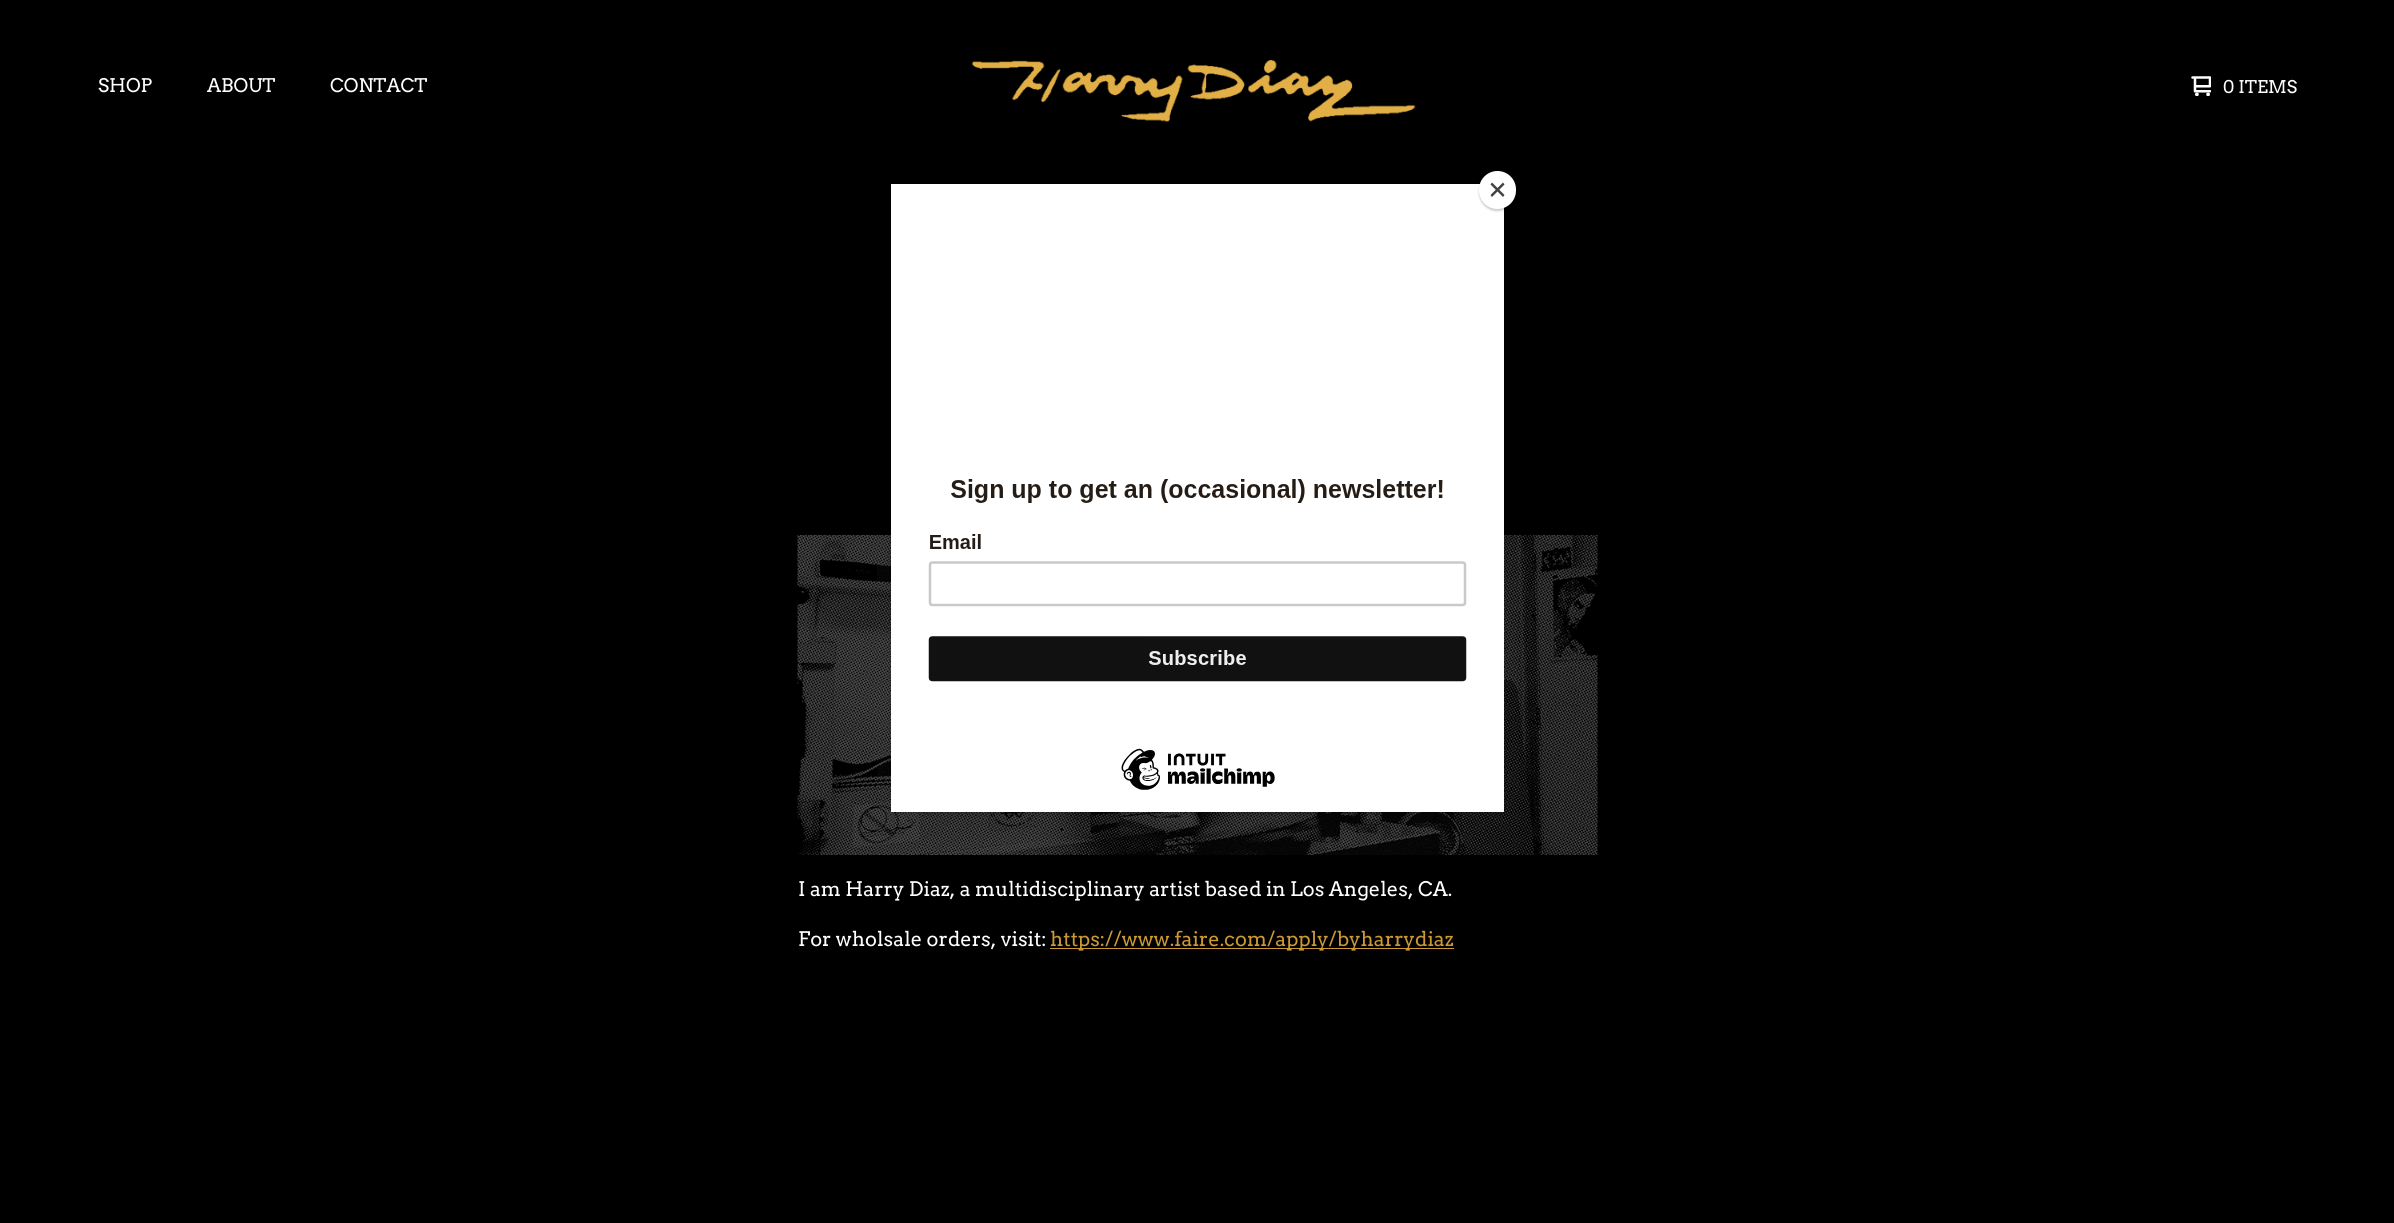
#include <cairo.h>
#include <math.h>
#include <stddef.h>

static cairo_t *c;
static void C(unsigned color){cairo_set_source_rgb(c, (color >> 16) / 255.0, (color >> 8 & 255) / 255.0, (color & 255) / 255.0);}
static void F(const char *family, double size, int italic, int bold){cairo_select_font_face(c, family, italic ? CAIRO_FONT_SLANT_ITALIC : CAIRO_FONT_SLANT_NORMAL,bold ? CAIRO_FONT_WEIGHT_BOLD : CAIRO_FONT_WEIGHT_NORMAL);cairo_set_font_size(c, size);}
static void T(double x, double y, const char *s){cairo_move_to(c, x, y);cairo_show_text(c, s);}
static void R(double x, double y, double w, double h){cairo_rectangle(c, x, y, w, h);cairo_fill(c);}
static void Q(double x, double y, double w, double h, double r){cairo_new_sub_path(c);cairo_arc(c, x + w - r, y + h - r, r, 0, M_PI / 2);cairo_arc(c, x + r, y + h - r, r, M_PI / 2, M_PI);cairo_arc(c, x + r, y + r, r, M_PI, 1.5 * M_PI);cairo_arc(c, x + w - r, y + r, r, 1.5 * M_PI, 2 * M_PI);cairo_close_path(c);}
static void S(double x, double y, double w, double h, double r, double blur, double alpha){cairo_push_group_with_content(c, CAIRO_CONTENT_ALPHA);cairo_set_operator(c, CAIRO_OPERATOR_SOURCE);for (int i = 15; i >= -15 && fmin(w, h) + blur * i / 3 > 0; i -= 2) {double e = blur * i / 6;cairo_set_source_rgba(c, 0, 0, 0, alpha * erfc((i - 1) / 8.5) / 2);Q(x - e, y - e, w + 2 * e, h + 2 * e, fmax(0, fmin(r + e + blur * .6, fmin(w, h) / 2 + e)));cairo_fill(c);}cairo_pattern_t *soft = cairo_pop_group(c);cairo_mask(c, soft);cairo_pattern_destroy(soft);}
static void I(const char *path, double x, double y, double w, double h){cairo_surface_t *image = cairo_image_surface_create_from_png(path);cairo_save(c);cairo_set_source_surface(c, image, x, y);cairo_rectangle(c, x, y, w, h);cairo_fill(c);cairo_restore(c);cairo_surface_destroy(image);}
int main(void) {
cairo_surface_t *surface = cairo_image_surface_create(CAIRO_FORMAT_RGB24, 2394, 1223);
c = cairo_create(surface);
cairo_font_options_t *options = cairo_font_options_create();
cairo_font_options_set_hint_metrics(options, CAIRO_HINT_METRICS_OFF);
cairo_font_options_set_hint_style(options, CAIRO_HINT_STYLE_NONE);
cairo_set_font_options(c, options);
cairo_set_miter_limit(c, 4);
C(0x000000);
cairo_paint(c);
F("Arvo",18.75,0,0);
C(0xffffff);
T(98,92,"SHOP");
T(207,92,"ABOUT");
T(330,92,"CONTACT");
I("1.png",972,59,444,63);
I("2.png",2191,76,20,20);
F("Arvo",17.5,0,0);
T(2223,93,"0 ITEMS");
I("4.png",797,535,801,320);
C(0x000000);
S(891,186,613,628,0,2.5,.2);
I("3.png",891,184,613,628);
S(1479,174,37,37,18.5,1,.2);
C(0xffffff);
Q(1479,171,37,38,18.5);
cairo_fill(c);
C(0x414141);
cairo_new_path(c);
cairo_move_to(c,1503,182.5);
cairo_line_to(c,1504.5,184.5);
cairo_line_to(c,1492,197);
cairo_line_to(c,1490.5,195);
cairo_close_path(c);
cairo_fill(c);
cairo_new_path(c);
cairo_move_to(c,1490.5,184.5);
cairo_line_to(c,1492,182.5);
cairo_line_to(c,1504.5,195);
cairo_line_to(c,1503,197);
cairo_close_path(c);
cairo_fill(c);
F("Arvo",20,0,0);
C(0xffffff);
T(798,896,"I am Harry Diaz, a multidisciplinary artist based in Los Angeles, CA.");
T(798,946,"For wholsale orders, visit:");
C(0xcc9933);
R(1050,948,404,1);
T(1050,946,"https://www.faire.com/apply/byharrydiaz");
cairo_surface_write_to_png(surface, "o.png");
cairo_font_options_destroy(options);
cairo_destroy(c);
cairo_surface_destroy(surface);
return 0;
}
